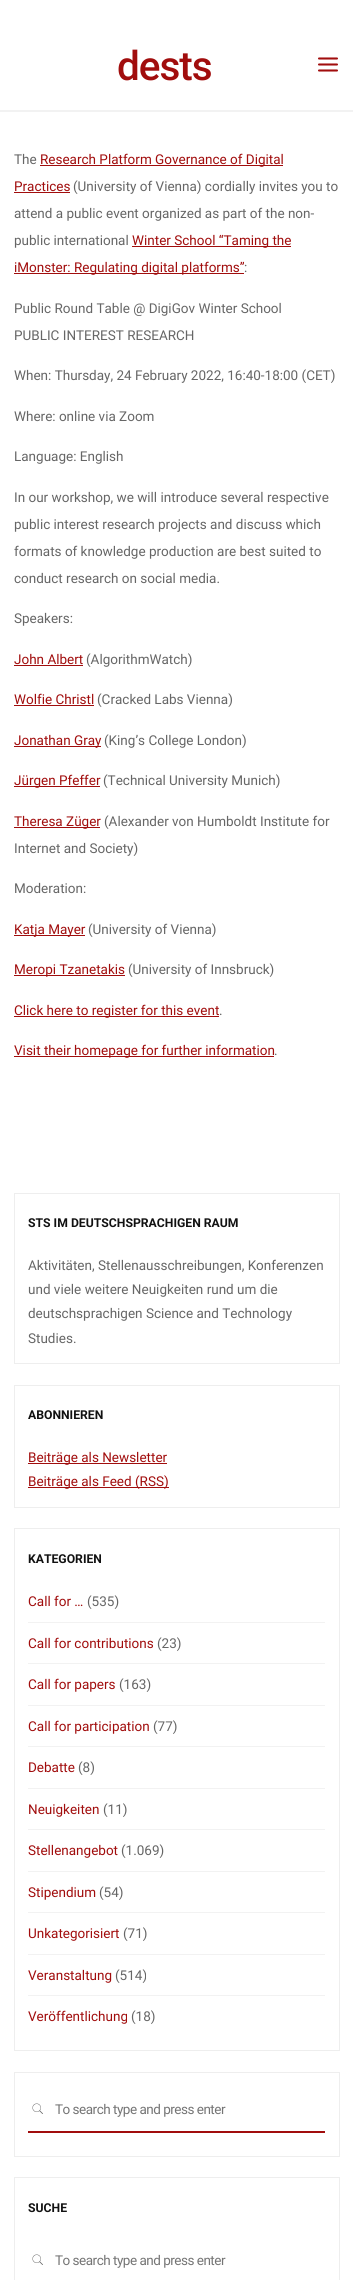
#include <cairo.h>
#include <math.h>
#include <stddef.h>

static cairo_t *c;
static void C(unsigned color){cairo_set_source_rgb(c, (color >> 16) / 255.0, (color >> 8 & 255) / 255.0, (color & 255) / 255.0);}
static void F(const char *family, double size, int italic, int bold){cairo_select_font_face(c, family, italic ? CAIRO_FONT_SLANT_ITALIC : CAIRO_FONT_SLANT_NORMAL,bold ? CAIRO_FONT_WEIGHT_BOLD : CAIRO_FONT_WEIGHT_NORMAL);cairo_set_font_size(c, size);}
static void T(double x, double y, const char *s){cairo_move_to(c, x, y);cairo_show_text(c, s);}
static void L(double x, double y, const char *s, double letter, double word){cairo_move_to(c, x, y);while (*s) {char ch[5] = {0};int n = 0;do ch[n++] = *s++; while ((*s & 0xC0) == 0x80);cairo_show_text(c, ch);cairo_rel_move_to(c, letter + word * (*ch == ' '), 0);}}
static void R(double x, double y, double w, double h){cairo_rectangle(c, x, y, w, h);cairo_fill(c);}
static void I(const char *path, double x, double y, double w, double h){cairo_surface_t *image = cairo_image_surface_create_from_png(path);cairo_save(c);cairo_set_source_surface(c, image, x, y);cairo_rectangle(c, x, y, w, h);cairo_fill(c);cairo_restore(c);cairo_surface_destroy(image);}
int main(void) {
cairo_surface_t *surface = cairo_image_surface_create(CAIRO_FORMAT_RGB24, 353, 2280);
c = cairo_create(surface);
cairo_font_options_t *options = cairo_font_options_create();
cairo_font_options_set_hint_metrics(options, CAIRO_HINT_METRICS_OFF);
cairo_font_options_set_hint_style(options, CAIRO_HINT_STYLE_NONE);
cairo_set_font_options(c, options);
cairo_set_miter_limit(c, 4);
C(0xffffff);
cairo_paint(c);
F("Roboto Medium",40.5,0,0);
C(0xa10d0d);
L(117,80,"dests",-1,0);
I("1.png",318,57,20,15);
C(0xf2f2f2);
R(0,110,353,2);
F("Roboto",13.5,0,0);
C(0x666666);
T(14,164,"The");
C(0xa10d0d);
R(40,165,243,1);
T(40,164,"Research Platform Governance of Digital");
T(14,191,"Practices");
R(14,192,56,1);
C(0x666666);
T(73,191,"(University of Vienna) cordially invites you to");
T(14,218,"attend a public event organized as part of the non-");
T(14,245,"public international");
C(0xa10d0d);
R(132,246,159,1);
T(132,245,"Winter School “Taming the");
R(14,273,230,1);
T(14,272,"iMonster: Regulating digital platforms”");
C(0x666666);
T(244,272,":");
T(14,313,"Public Round Table @ DigiGov Winter School");
T(14,340,"PUBLIC INTEREST RESEARCH");
T(14,380,"When: Thursday, 24 February 2022, 16:40-18:00 (CET)");
T(14,421,"Where: online via Zoom");
T(14,461,"Language: English");
T(14,502,"In our workshop, we will introduce several respective");
T(14,529,"public interest research projects and discuss which");
T(14,556,"formats of knowledge production are best suited to");
T(14,583,"conduct research on social media.");
T(14,623,"Speakers:");
C(0xa10d0d);
T(14,664,"John Albert");
R(14,665,69,1);
C(0x666666);
T(86,664,"(AlgorithmWatch)");
C(0xa10d0d);
T(14,704,"Wolfie Christl");
R(14,705,80,1);
C(0x666666);
T(97,704,"(Cracked Labs Vienna)");
C(0xa10d0d);
R(14,746,87,1);
T(14,745,"Jonathan Gray");
C(0x666666);
T(104,745,"(King’s College London)");
C(0xa10d0d);
R(14,786,86,1);
T(14,785,"Jürgen Pfeffer");
C(0x666666);
T(103,785,"(Technical University Munich)");
C(0xa10d0d);
R(14,827,86,1);
T(14,826,"Theresa Züger");
C(0x666666);
T(104,826,"(Alexander von Humboldt Institute for");
T(14,853,"Internet and Society)");
T(14,893,"Moderation:");
C(0xa10d0d);
R(14,935,71,1);
T(14,934,"Katja Mayer");
C(0x666666);
T(88,934,"(University of Vienna)");
C(0xa10d0d);
R(14,975,111,1);
T(14,974,"Meropi Tzanetakis");
C(0x666666);
T(128,974,"(University of Innsbruck)");
C(0xa10d0d);
R(14,1016,205,1);
T(14,1015,"Click here to register for this event");
C(0x666666);
T(219,1015,".");
C(0xa10d0d);
R(14,1056,260,1);
T(14,1055,"Visit their homepage for further information");
C(0x666666);
T(274,1055,".");
cairo_rectangle(c,14.5,1193.5,325,170);
C(0xeeeeee);
cairo_set_line_width(c,1);
cairo_stroke(c);
F("Roboto",12.2,0,1);
C(0x111111);
T(28,1227,"STS IM DEUTSCHSPRACHIGEN RAUM");
F("Roboto",13.5,0,0);
C(0x666666);
T(28,1270,"Aktivitäten, Stellenausschreibungen, Konferenzen");
T(28,1294,"und viele weitere Neuigkeiten rund um die");
T(28,1318,"deutschsprachigen Science and Technology");
T(28,1343,"Studies.");
cairo_rectangle(c,14.5,1385.5,325,122);
C(0xeeeeee);
cairo_stroke(c);
F("Roboto",12.2,0,1);
C(0x111111);
T(28,1419,"ABONNIEREN");
C(0xa10d0d);
R(28,1463,139,1);
F("Roboto",13.5,0,0);
T(28,1462,"Beiträge als Newsletter");
R(28,1487,141,1);
T(28,1486,"Beiträge als Feed (RSS)");
cairo_rectangle(c,14.5,1528.5,325,522);
C(0xeeeeee);
cairo_stroke(c);
F("Roboto",12.2,0,1);
C(0x111111);
T(28,1563,"KATEGORIEN");
C(0xf2f2f2);
R(28,1622,297,1);
F("Roboto",13.5,0,0);
C(0xa10d0d);
T(28,1606,"Call for …");
C(0x666666);
T(87,1606,"(535)");
C(0xf2f2f2);
R(28,1663,297,1);
C(0xa10d0d);
T(28,1648,"Call for contributions");
C(0x666666);
T(157,1648,"(23)");
C(0xf2f2f2);
R(28,1705,297,1);
C(0xa10d0d);
T(28,1689,"Call for papers");
C(0x666666);
T(119,1689,"(163)");
C(0xf2f2f2);
R(28,1746,297,1);
C(0xa10d0d);
T(28,1731,"Call for participation");
C(0x666666);
T(153,1731,"(77)");
C(0xf2f2f2);
R(28,1788,297,1);
C(0xa10d0d);
T(28,1772,"Debatte");
C(0x666666);
T(78,1772,"(8)");
C(0xf2f2f2);
R(28,1829,297,1);
C(0xa10d0d);
T(28,1814,"Neuigkeiten");
C(0x666666);
T(103,1814,"(11)");
C(0xf2f2f2);
R(28,1871,297,1);
C(0xa10d0d);
T(28,1855,"Stellenangebot");
C(0x666666);
T(121,1855,"(1.069)");
C(0xf2f2f2);
R(28,1912,297,1);
C(0xa10d0d);
T(28,1897,"Stipendium");
C(0x666666);
T(99,1897,"(54)");
C(0xf2f2f2);
R(28,1954,297,1);
C(0xa10d0d);
T(28,1938,"Unkategorisiert");
C(0x666666);
T(123,1938,"(71)");
C(0xf2f2f2);
R(28,1995,297,1);
C(0xa10d0d);
T(28,1980,"Veranstaltung");
C(0x666666);
T(115,1980,"(514)");
C(0xa10d0d);
T(28,2021,"Veröffentlichung");
C(0x666666);
T(131,2021,"(18)");
cairo_rectangle(c,14.5,2072.5,325,84);
C(0xeeeeee);
cairo_stroke(c);
I("2.png",32,2103,11,11);
C(0xa10d0d);
R(28,2131,297,2);
C(0x757575);
L(55,2114,"To search type and press enter",-.5,0);
cairo_rectangle(c,14.5,2177.5,325,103);
C(0xeeeeee);
cairo_stroke(c);
F("Roboto",12.2,0,1);
C(0x111111);
T(28,2212,"SUCHE");
I("2.png",32,2254,11,11);
F("Roboto",13.5,0,0);
C(0x757575);
L(55,2265,"To search type and press enter",-.5,0);
cairo_surface_write_to_png(surface, "o.png");
cairo_font_options_destroy(options);
cairo_destroy(c);
cairo_surface_destroy(surface);
return 0;
}
